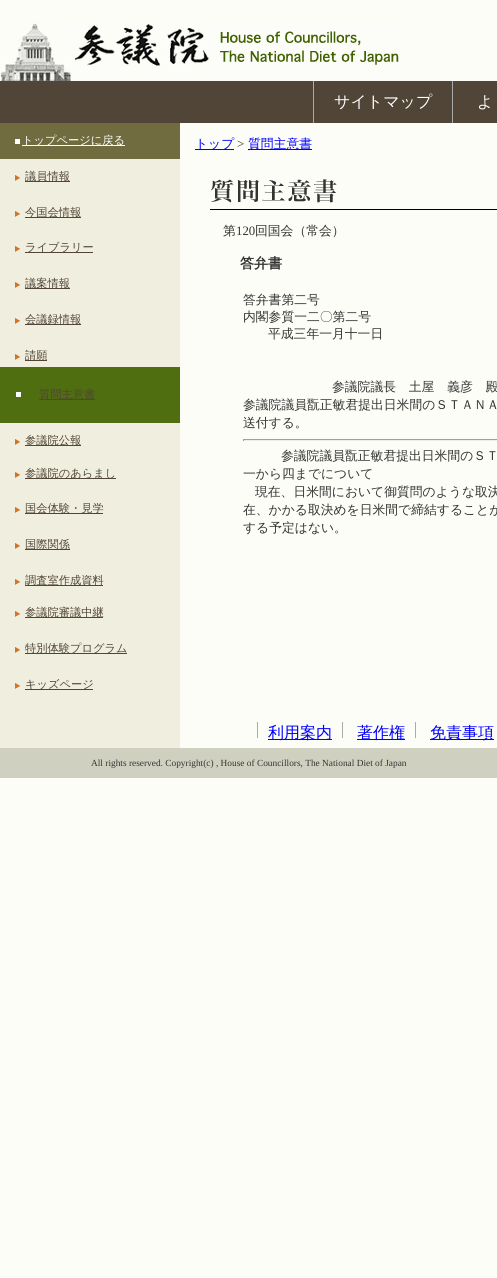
#include <cairo.h>
#include <math.h>
#include <stddef.h>

static cairo_t *c;
static void C(unsigned color){cairo_set_source_rgb(c, (color >> 16) / 255.0, (color >> 8 & 255) / 255.0, (color & 255) / 255.0);}
static void F(const char *family, double size, int italic, int bold){cairo_select_font_face(c, family, italic ? CAIRO_FONT_SLANT_ITALIC : CAIRO_FONT_SLANT_NORMAL,bold ? CAIRO_FONT_WEIGHT_BOLD : CAIRO_FONT_WEIGHT_NORMAL);cairo_set_font_size(c, size);}
static void T(double x, double y, const char *s){cairo_move_to(c, x, y);cairo_show_text(c, s);}
static void R(double x, double y, double w, double h){cairo_rectangle(c, x, y, w, h);cairo_fill(c);}
static void I(const char *path, double x, double y, double w, double h){cairo_surface_t *image = cairo_image_surface_create_from_png(path);cairo_save(c);cairo_set_source_surface(c, image, x, y);cairo_rectangle(c, x, y, w, h);cairo_fill(c);cairo_restore(c);cairo_surface_destroy(image);}
int main(void) {
cairo_surface_t *surface = cairo_image_surface_create(CAIRO_FORMAT_RGB24, 497, 1278);
c = cairo_create(surface);
cairo_font_options_t *options = cairo_font_options_create();
cairo_font_options_set_hint_metrics(options, CAIRO_HINT_METRICS_OFF);
cairo_font_options_set_hint_style(options, CAIRO_HINT_STYLE_NONE);
cairo_set_font_options(c, options);
cairo_set_miter_limit(c, 4);
C(0xfdfdf8);
cairo_paint(c);
I("1.png",1,23,400,58);
C(0x514537);
R(0,81,497,42);
C(0xaaaaaa);
R(452,81,1,42);
R(313,81,1,42);
F("WenQuanYi Zen Hei Medium",16,0,0);
C(0xffffff);
T(334,107,"サイトマップ");
T(477,107,"よ");
C(0xf0efdf);
R(0,159,180,589);
C(0x706c40);
R(0,123,180,36);
C(0xffffff);
R(15,139,5,5);
R(22,145,103,1);
F("WenQuanYi Zen Hei Medium",11.25,0,0);
T(22,144,"トップページに戻る");
I("2.png",15,175,6,6);
C(0x514537);
R(25,181,45,1);
T(25,180,"議員情報");
I("2.png",15,211,6,6);
R(25,217,56,1);
T(25,216,"今国会情報");
I("2.png",15,246,6,6);
R(25,252,68,1);
T(25,251,"ライブラリー");
I("2.png",15,282,6,6);
R(25,288,45,1);
T(25,287,"議案情報");
I("2.png",15,318,6,6);
R(25,324,56,1);
T(25,323,"会議録情報");
I("2.png",15,354,6,6);
R(25,360,22,1);
T(25,359,"請願");
C(0x4e6e0f);
R(0,367,180,56);
C(0xffffff);
R(16,392,5,5);
C(0x514537);
R(39,399,56,1);
T(39,398,"質問主意書");
I("2.png",15,439,6,6);
R(25,445,56,1);
T(25,444,"参議院公報");
I("2.png",15,472,6,6);
R(25,478,91,1);
T(25,477,"参議院のあらまし");
I("2.png",15,507,6,6);
R(25,513,78,1);
T(25,512,"国会体験・見学");
I("2.png",15,543,6,6);
R(25,549,45,1);
T(25,548,"国際関係");
I("2.png",15,579,6,6);
R(25,585,78,1);
T(25,584,"調査室作成資料");
I("2.png",15,611,6,6);
R(25,617,78,1);
T(25,616,"参議院審議中継");
I("2.png",15,647,6,6);
R(25,653,102,1);
T(25,652,"特別体験プログラム");
I("2.png",15,683,6,6);
R(25,689,68,1);
T(25,688,"キッズページ");
C(0x0000ff);
R(195,149,39,1);
F("WenQuanYi Zen Hei Medium",12.8,0,0);
T(195,148,"トップ");
F("Liberation Serif",12.8,0,0);
C(0x333333);
T(237,148,">");
C(0x0000ff);
R(248,149,64,1);
F("WenQuanYi Zen Hei Medium",12.8,0,0);
T(248,148,"質問主意書");
I("3.png",210,179,287,31);
C(0x333333);
T(223,235,"第");
F("Liberation Serif",12.8,0,0);
T(236,235,"120");
F("WenQuanYi Zen Hei Medium",12.8,0,0);
T(255,235,"回国会（常会）");
F("WenQuanYi Zen Hei",14,0,1);
T(240,268,"答弁書");
F("WenQuanYi Zen Hei Medium",12.8,0,0);
T(243,304,"答弁書第二号");
T(243,321,"内閣参質一二〇第二号");
T(268,338,"平成三年一月十一日");
T(332,391,"参議院議長　土屋　義彦　殿");
T(243,409,"参議院議員翫正敏君提出日米間のＳＴＡＮＡ");
T(243,427,"送付する。");
C(0x9f9f9f);
R(243,439,254,1);
C(0xeeeeee);
R(243,440,254,1);
C(0x9f9f9f);
R(243,439,1,2);
C(0x333333);
T(281,460,"参議院議員翫正敏君提出日米間のＳＴ");
T(243,478,"一から四までについて");
T(255,496,"現在、日米間において御質問のような取決");
T(243,514,"在、かかる取決めを日米間で締結することが");
T(243,532,"する予定はない。");
C(0xaaaaaa);
R(342,722,1,16);
R(257,722,1,16);
C(0x0000ff);
R(268,739,64,1);
F("WenQuanYi Zen Hei Medium",16,0,0);
T(268,738,"利用案内");
C(0xaaaaaa);
R(415,722,1,16);
C(0x0000ff);
R(357,739,48,1);
T(357,738,"著作権");
R(430,739,64,1);
T(430,738,"免責事項");
C(0xd0d0c0);
R(0,748,497,30);
F("Liberation Serif",9.35,0,0);
C(0x333333);
T(91,766,"All rights reserved. Copyright(c) , House of Councillors, The National Diet of Japan");
cairo_surface_write_to_png(surface, "o.png");
cairo_font_options_destroy(options);
cairo_destroy(c);
cairo_surface_destroy(surface);
return 0;
}
